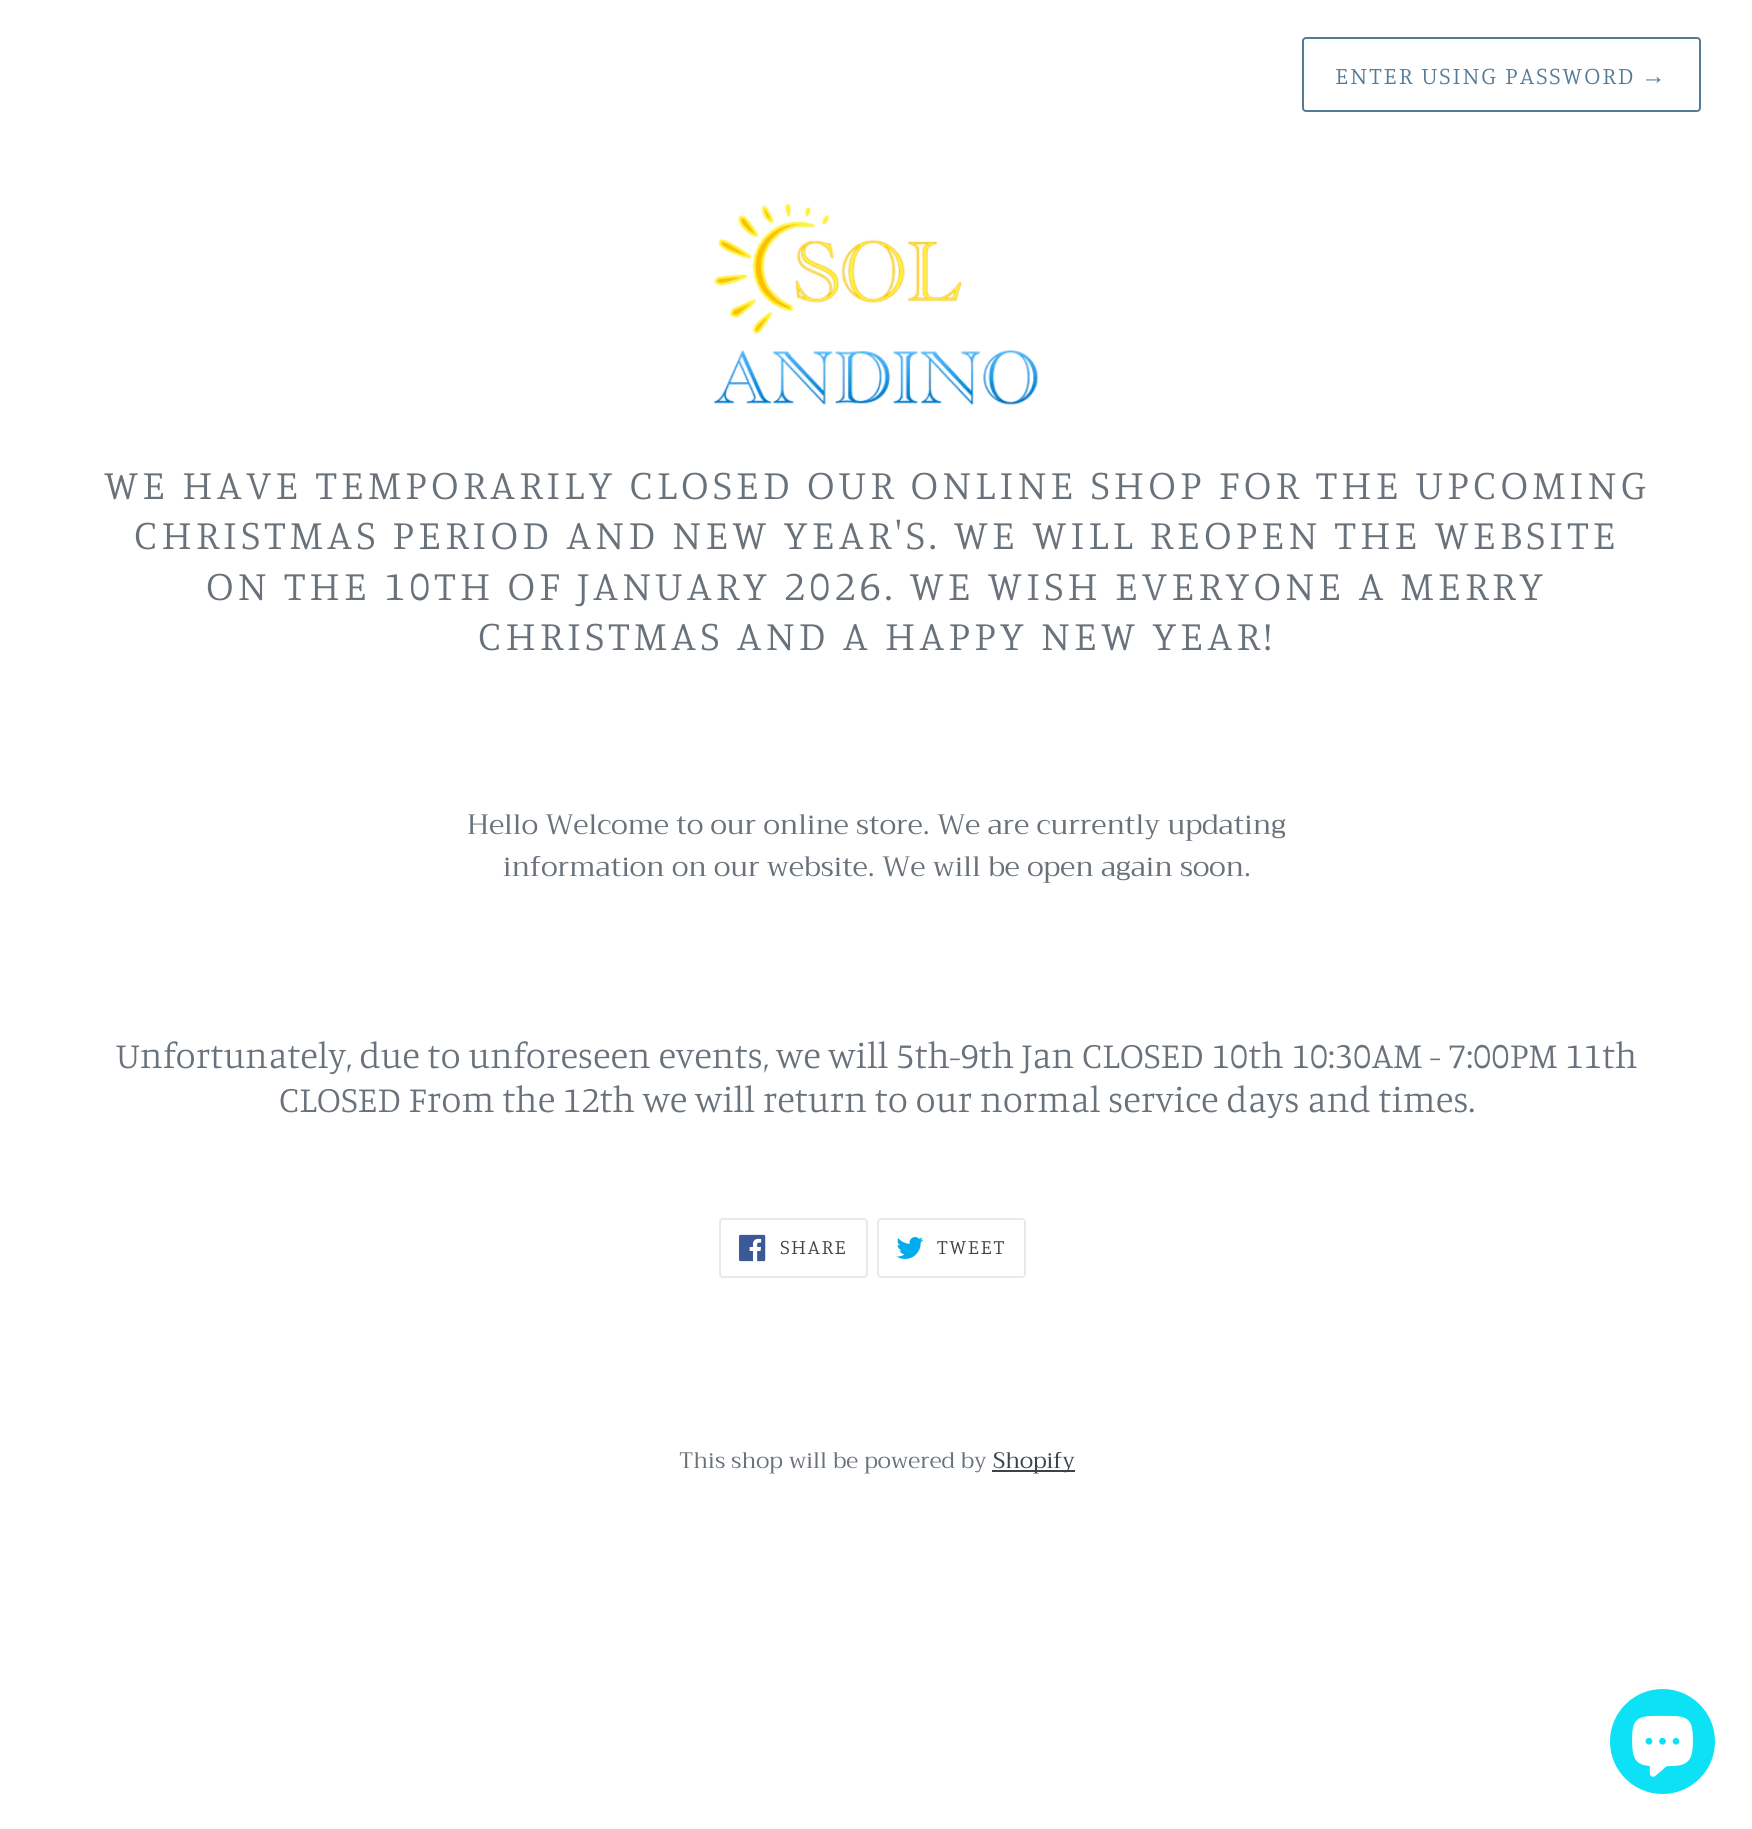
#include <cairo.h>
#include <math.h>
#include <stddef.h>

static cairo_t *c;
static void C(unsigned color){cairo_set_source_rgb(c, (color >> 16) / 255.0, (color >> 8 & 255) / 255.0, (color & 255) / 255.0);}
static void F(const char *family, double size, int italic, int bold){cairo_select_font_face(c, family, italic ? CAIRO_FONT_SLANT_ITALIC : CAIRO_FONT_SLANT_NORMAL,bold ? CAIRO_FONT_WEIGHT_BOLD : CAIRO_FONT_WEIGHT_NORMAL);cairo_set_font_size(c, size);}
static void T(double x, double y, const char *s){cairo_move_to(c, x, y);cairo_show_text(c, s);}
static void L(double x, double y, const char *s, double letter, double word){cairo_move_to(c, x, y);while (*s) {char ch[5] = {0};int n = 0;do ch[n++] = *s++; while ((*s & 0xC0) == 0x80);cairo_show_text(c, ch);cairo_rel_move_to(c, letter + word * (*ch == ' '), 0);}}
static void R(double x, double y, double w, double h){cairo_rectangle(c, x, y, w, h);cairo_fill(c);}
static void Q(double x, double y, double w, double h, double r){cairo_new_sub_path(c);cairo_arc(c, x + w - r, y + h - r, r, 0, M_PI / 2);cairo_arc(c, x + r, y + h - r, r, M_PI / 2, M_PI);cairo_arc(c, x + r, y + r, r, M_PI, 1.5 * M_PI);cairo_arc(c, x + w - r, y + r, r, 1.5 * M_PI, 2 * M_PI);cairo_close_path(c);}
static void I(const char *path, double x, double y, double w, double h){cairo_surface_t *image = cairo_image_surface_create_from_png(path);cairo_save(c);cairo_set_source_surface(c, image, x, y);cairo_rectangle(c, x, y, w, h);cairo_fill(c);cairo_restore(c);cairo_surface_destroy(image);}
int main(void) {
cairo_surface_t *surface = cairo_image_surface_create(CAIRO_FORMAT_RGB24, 1752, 1829);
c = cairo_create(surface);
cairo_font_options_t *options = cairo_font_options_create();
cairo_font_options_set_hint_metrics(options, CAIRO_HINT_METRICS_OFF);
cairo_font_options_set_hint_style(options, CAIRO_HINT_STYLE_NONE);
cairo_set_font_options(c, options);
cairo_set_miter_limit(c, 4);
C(0xffffff);
cairo_paint(c);
Q(1303,38,397,73,3);
C(0x557b97);
cairo_stroke(c);
F("Manuale Light",24.5,0,0);
L(1335,84,"ENTER USING PASSWORD",2,0);
F("Liberation Serif",24.5,0,0);
L(1641,84,"→",2,0);
I("1.png",713,203,326,202);
F("Manuale Light",42,0,0);
C(0x69727b);
L(104,499,"WE HAVE TEMPORARILY CLOSED OUR ONLINE SHOP FOR THE UPCOMING",4.2,0);
L(134,549,"CHRISTMAS PERIOD AND NEW YEAR'S. WE WILL REOPEN THE WEBSITE",4.2,0);
L(206,600,"ON THE 10TH OF JANUARY 2026. WE WISH EVERYONE A MERRY",4.2,0);
L(478,650,"CHRISTMAS AND A HAPPY NEW YEAR!",4.2,0);
F("Trirong",28,0,0);
T(467,834,"Hello Welcome to our online store. We are currently updating");
T(503,876,"information on our website. We will be open again soon.");
F("Manuale Light",36.75,0,0);
T(116,1068,"Unfortunately, due to unforeseen events, we will 5th-9th Jan CLOSED 10th 10:30AM - 7:00PM 11th");
T(279,1112,"CLOSED From the 12th we will return to our normal service days and times.");
Q(720,1219,147,58,3);
C(0xe8e9eb);
cairo_stroke(c);
I("2.png",739,1234,27,28);
F("Manuale Light",21,0,0);
C(0x3d4246);
L(780,1254,"SHARE",1.5,0);
Q(878,1219,147,58,3);
C(0xe8e9eb);
cairo_stroke(c);
I("3.png",896,1237,28,22);
C(0x3d4246);
L(937,1254,"TWEET",1.5,0);
F("Trirong",22.4,0,0);
C(0x69727b);
T(679,1468,"This shop will be powered by");
C(0x3d4246);
R(992,1470,83,2);
T(993,1468,"Shopify");
C(0x0ce1f5);
cairo_new_path(c);
cairo_arc(c,1662.5,1741.5,52.5,0,2 * M_PI);
cairo_fill(c);
I("4.png",1632,1715,61,62);
cairo_surface_write_to_png(surface, "o.png");
cairo_font_options_destroy(options);
cairo_destroy(c);
cairo_surface_destroy(surface);
return 0;
}
